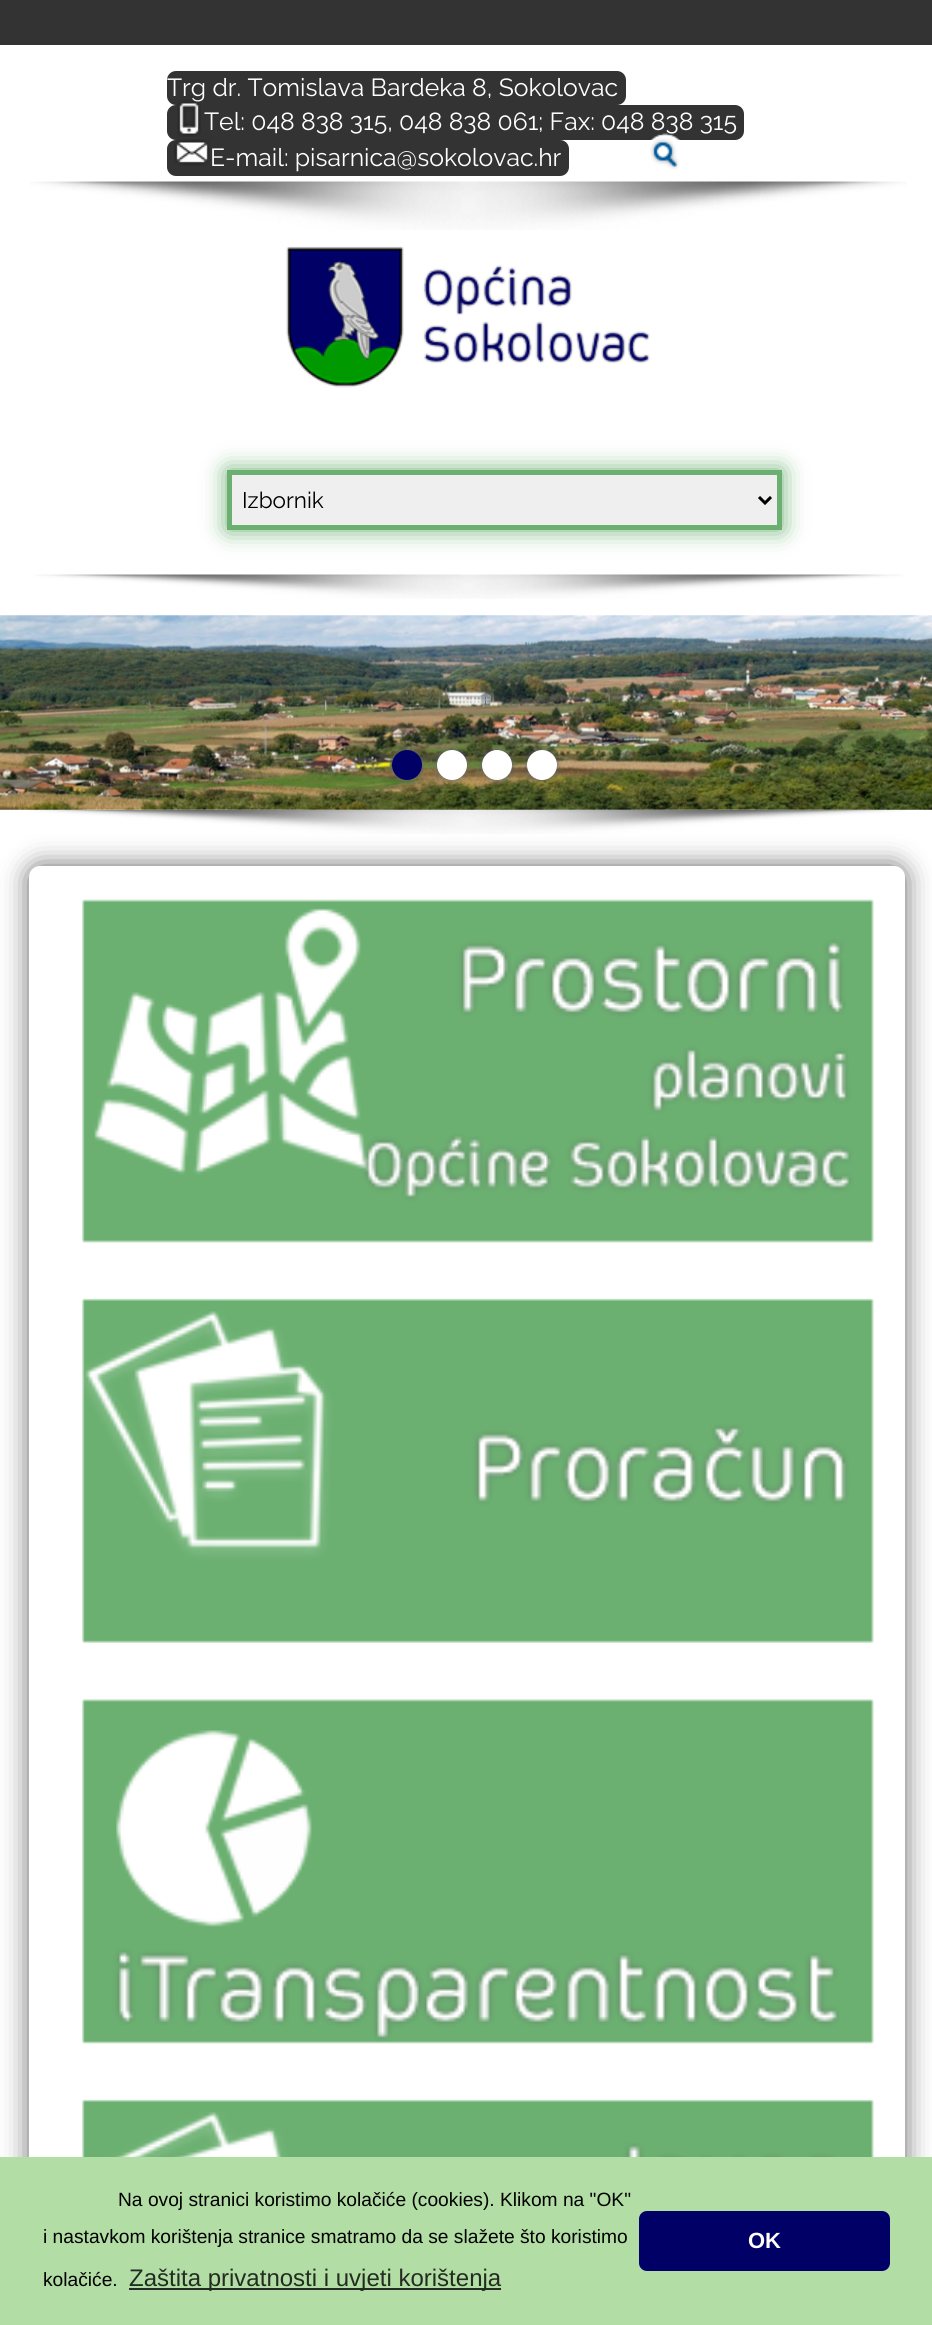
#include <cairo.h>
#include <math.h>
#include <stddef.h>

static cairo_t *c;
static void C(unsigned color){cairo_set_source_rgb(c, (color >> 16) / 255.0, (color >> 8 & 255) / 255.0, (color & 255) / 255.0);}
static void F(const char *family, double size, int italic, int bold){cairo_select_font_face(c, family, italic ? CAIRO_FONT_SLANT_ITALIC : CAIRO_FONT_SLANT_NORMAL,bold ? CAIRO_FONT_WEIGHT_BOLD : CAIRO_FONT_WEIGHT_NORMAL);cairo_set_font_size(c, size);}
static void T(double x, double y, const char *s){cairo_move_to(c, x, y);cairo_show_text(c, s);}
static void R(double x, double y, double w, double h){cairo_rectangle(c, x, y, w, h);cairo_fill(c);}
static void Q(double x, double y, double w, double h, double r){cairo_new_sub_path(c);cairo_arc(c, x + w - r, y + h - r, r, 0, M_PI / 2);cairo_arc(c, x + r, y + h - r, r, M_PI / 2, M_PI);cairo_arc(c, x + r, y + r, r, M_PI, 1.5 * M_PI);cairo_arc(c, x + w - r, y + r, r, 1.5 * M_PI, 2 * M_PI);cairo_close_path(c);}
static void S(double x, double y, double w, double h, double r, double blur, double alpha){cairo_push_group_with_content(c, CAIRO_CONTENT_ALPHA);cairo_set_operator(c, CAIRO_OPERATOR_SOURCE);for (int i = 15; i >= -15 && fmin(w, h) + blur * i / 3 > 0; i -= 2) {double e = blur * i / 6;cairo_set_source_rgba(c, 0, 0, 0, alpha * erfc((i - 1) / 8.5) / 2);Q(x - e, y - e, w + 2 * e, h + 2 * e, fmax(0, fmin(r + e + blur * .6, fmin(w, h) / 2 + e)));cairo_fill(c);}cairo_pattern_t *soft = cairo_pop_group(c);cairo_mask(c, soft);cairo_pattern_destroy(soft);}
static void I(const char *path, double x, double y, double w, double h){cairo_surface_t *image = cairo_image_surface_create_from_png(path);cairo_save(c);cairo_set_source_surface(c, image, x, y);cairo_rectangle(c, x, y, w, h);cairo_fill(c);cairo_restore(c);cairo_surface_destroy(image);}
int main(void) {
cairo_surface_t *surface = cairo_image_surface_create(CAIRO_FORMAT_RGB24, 932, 2325);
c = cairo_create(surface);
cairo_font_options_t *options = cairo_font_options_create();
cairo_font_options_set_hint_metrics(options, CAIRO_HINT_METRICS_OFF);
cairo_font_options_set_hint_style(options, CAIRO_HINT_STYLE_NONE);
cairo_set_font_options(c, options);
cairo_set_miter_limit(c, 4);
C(0xffffff);
cairo_paint(c);
C(0x333333);
R(0,0,932,45);
Q(167,71,459,34,9);
cairo_fill(c);
F("Raleway",24.75,0,0);
C(0xffffff);
T(167,96,"Trg dr. Tomislava Bardeka 8, Sokolovac");
C(0x333333);
Q(167,105,577,35,9);
cairo_fill(c);
I("1.png",177,98,24,39);
C(0xffffff);
T(204,130,"Tel: 048 838 315, 048 838 061; Fax: 048 838 315");
C(0x333333);
Q(167,140,402,36,9);
cairo_fill(c);
I("2.png",174,139,36,27);
C(0xffffff);
T(210,166,"E-mail: pisarnica@sokolovac.hr");
I("3.png",650,133,30,37);
I("4.png",30,181,877,49);
I("5.png",286,246,364,142);
C(0x6bb071);
S(227,470,555,60,0,12,1);
C(0xefefef);
cairo_rectangle(c,229.5,472.5,550,55);
cairo_fill_preserve(c);
C(0x6bb071);
cairo_set_line_width(c,5);
cairo_stroke(c);
cairo_new_path(c);
cairo_move_to(c,759,497);
cairo_line_to(c,765,503);
cairo_line_to(c,771,497);
C(0x000000);
cairo_set_line_width(c,3);
cairo_stroke(c);
F("Raleway",22.5,0,0);
T(242,508,"Izbornik");
I("6.png",35,574,868,25);
I("7.png",0,615,932,195);
C(0x666666);
S(392,750,30,30,15,3,1);
C(0x010066);
cairo_arc(c,407,765,15,0,2 * M_PI);
cairo_fill(c);
C(0x666666);
S(437,750,30,30,15,3,1);
C(0xffffff);
cairo_arc(c,452,765,15,0,2 * M_PI);
cairo_fill(c);
C(0x666666);
S(482,750,30,30,15,3,1);
C(0xffffff);
cairo_arc(c,497,765,15,0,2 * M_PI);
cairo_fill(c);
C(0x666666);
S(527,750,30,30,15,3,1);
C(0xffffff);
cairo_arc(c,542,765,15,0,2 * M_PI);
cairo_fill(c);
C(0x666666);
S(29,866,876,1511,11,13.5,1);
I("8.png",30,810,877,24);
C(0xffffff);
Q(29,866,876,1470,11);
cairo_fill(c);
I("9.png",82,899,792,344);
I("10.png",82,1298,792,345);
I("11.png",82,1699,792,345);
I("12.png",82,2099,792,58);
C(0xb2dda5);
R(0,2157,932,168);
F("Liberation Sans",19.2,0,0);
C(0x000000);
T(118,2206,"Na ovoj stranici koristimo kolačiće (cookies). Klikom na \"OK\"");
T(43,2243,"i nastavkom korištenja stranice smatramo da se slažete što koristimo");
T(43,2286,"kolačiće.");
C(0x242c21);
R(129,2288,372,2);
F("Liberation Sans",24,0,0);
T(129,2286,"Zaštita privatnosti i uvjeti korištenja");
C(0x010066);
Q(639,2211,251,60,8);
cairo_fill(c);
F("Liberation Sans",22,0,1);
C(0xffffff);
T(748,2248,"OK");
cairo_surface_write_to_png(surface, "o.png");
cairo_font_options_destroy(options);
cairo_destroy(c);
cairo_surface_destroy(surface);
return 0;
}
